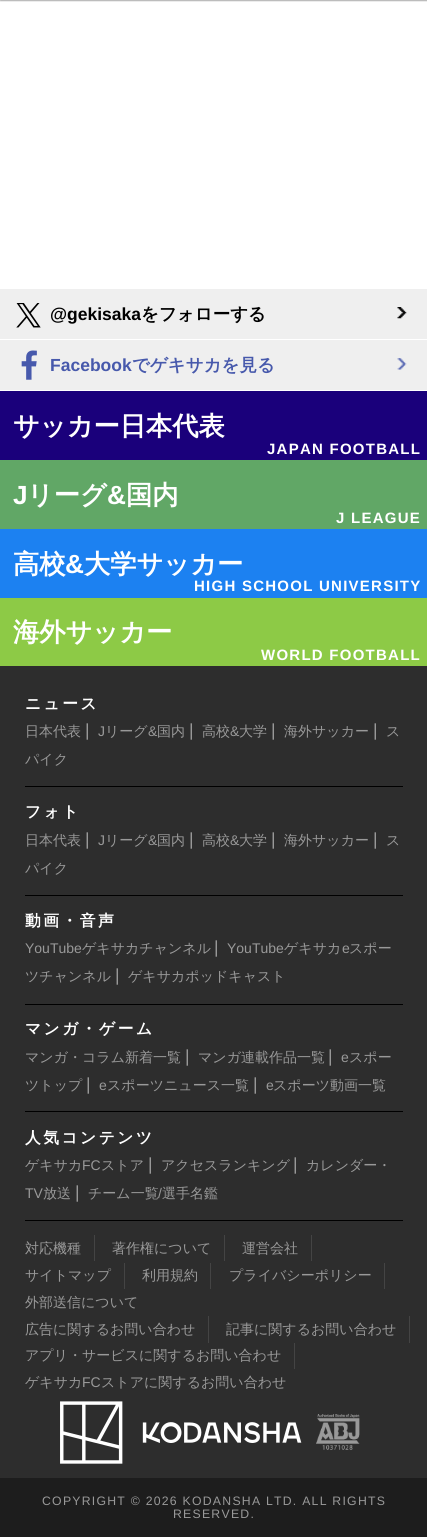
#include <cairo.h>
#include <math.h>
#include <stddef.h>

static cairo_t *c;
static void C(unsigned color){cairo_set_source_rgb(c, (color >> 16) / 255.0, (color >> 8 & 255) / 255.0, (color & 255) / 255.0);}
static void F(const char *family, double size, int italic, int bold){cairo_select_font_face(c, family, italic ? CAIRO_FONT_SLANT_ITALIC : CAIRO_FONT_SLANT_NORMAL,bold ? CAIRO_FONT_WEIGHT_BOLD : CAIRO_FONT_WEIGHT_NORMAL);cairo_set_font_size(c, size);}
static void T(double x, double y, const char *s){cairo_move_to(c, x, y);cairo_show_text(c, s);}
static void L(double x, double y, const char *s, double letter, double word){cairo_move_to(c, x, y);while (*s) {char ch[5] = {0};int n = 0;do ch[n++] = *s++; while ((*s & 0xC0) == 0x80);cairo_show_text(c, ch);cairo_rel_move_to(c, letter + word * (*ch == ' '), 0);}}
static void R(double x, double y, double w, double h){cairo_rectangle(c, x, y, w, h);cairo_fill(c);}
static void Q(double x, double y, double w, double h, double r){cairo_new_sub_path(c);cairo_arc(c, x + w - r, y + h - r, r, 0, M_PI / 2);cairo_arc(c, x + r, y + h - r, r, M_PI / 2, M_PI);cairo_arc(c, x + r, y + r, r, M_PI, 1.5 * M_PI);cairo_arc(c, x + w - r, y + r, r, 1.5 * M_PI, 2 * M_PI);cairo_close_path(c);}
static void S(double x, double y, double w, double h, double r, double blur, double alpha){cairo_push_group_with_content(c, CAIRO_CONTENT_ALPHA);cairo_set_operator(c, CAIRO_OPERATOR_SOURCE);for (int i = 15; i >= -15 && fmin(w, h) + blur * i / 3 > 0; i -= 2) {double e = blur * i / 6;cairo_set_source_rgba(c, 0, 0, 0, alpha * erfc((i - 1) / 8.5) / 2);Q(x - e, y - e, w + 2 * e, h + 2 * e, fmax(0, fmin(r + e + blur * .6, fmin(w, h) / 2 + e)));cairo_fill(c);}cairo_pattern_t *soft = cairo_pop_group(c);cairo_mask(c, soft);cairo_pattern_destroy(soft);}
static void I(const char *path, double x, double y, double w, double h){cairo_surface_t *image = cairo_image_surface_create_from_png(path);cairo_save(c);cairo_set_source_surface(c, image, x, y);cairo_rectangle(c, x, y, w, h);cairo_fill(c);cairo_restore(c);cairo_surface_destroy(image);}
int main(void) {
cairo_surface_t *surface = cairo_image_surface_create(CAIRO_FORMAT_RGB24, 427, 1537);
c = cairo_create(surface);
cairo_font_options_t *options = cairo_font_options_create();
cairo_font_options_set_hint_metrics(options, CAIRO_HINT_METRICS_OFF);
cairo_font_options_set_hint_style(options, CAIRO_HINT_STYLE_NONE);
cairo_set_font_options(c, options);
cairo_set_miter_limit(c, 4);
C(0xffffff);
cairo_paint(c);
C(0x000000);
S(0,-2,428,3,0,.5,.3);
C(0xefefef);
R(0,289,427,50);
I("1.png",397,307,10,12);
I("2.png",16,303,25,25);
F("Liberation Sans",17.5,0,1);
C(0x000000);
T(50,320,"@gekisaka");
F("WenQuanYi Zen Hei",17.5,0,1);
T(141,320,"をフォローする");
C(0xefefef);
R(0,340,427,50);
I("3.png",397,358,10,12);
I("4.png",21,350,16,30);
F("Liberation Sans",17.5,0,1);
C(0x4759ac);
T(50,371,"Facebook");
F("WenQuanYi Zen Hei",17.5,0,1);
T(132,371,"でゲキサカを見る");
C(0x1a007b);
R(0,391,427,69);
F("WenQuanYi Zen Hei",26.25,0,1);
C(0xffffff);
T(13,435,"サッカー日本代表");
F("Liberation Sans",15,0,1);
L(267,454,"JAPAN FOOTBALL",1.25,0);
C(0x61a766);
R(0,460,427,69);
F("Liberation Sans",26.25,0,1);
C(0xffffff);
T(13,504,"J");
F("WenQuanYi Zen Hei",26.25,0,1);
T(27,504,"リーグ");
F("Liberation Sans",26.25,0,1);
T(107,504,"&");
F("WenQuanYi Zen Hei",26.25,0,1);
T(126,504,"国内");
F("Liberation Sans",15,0,1);
L(336,523,"J LEAGUE",1.25,0);
C(0x1c81f1);
R(0,529,427,69);
F("WenQuanYi Zen Hei",26.25,0,1);
C(0xffffff);
T(13,573,"高校");
F("Liberation Sans",26.25,0,1);
T(65,573,"&");
F("WenQuanYi Zen Hei",26.25,0,1);
T(84,573,"大学サッカー");
F("Liberation Sans",15,0,1);
L(194,591,"HIGH SCHOOL UNIVERSITY",1.25,0);
C(0x8dca46);
R(0,598,427,68);
F("WenQuanYi Zen Hei",26.25,0,1);
C(0xffffff);
T(13,641,"海外サッカー");
F("Liberation Sans",15,0,1);
L(261,660,"WORLD FOOTBALL",1.25,0);
C(0x2d2d2d);
R(0,666,427,812);
C(0x000000);
R(25,786,378,1);
F("WenQuanYi Zen Hei",15.75,0,1);
C(0xffffff);
L(25,709,"ニュース",2.5,0);
F("WenQuanYi Zen Hei Medium",14,0,0);
C(0x999999);
T(25,736,"日本代表");
F("Liberation Sans",17.5,0,0);
T(85,736,"|");
F("Liberation Sans",14,0,0);
T(98,736,"J");
F("WenQuanYi Zen Hei Medium",14,0,0);
T(105,736,"リーグ");
F("Liberation Sans",14,0,0);
T(148,736,"&");
F("WenQuanYi Zen Hei Medium",14,0,0);
T(157,736,"国内");
F("Liberation Sans",17.5,0,0);
T(189,736,"|");
F("WenQuanYi Zen Hei Medium",14,0,0);
T(202,736,"高校");
F("Liberation Sans",14,0,0);
T(230,736,"&");
F("WenQuanYi Zen Hei Medium",14,0,0);
T(239,736,"大学");
F("Liberation Sans",17.5,0,0);
T(271,736,"|");
F("WenQuanYi Zen Hei Medium",14,0,0);
T(284,736,"海外サッカー");
F("Liberation Sans",17.5,0,0);
T(373,736,"|");
F("WenQuanYi Zen Hei Medium",14,0,0);
T(386,736,"ス");
T(25,764,"パイク");
C(0x000000);
R(25,895,378,1);
F("WenQuanYi Zen Hei",15.75,0,1);
C(0xffffff);
L(25,817,"フォト",2.5,0);
F("WenQuanYi Zen Hei Medium",14,0,0);
C(0x999999);
T(25,845,"日本代表");
F("Liberation Sans",17.5,0,0);
T(85,845,"|");
F("Liberation Sans",14,0,0);
T(98,845,"J");
F("WenQuanYi Zen Hei Medium",14,0,0);
T(105,845,"リーグ");
F("Liberation Sans",14,0,0);
T(148,845,"&");
F("WenQuanYi Zen Hei Medium",14,0,0);
T(157,845,"国内");
F("Liberation Sans",17.5,0,0);
T(189,845,"|");
F("WenQuanYi Zen Hei Medium",14,0,0);
T(202,845,"高校");
F("Liberation Sans",14,0,0);
T(230,845,"&");
F("WenQuanYi Zen Hei Medium",14,0,0);
T(239,845,"大学");
F("Liberation Sans",17.5,0,0);
T(271,845,"|");
F("WenQuanYi Zen Hei Medium",14,0,0);
T(284,845,"海外サッカー");
F("Liberation Sans",17.5,0,0);
T(373,845,"|");
F("WenQuanYi Zen Hei Medium",14,0,0);
T(386,845,"ス");
T(25,873,"パイク");
C(0x000000);
R(25,1004,378,1);
F("WenQuanYi Zen Hei",15.75,0,1);
C(0xffffff);
L(25,926,"動画・音声",2.5,0);
F("Liberation Sans",14,0,0);
C(0x999999);
T(25,953,"YouTube");
F("WenQuanYi Zen Hei Medium",14,0,0);
T(82,953,"ゲキサカチャンネル");
F("Liberation Sans",17.5,0,0);
T(214,953,"|");
F("Liberation Sans",14,0,0);
T(227,953,"YouTube");
F("WenQuanYi Zen Hei Medium",14,0,0);
T(284,953,"ゲキサカ");
F("Liberation Sans",14,0,0);
T(342,953,"e");
F("WenQuanYi Zen Hei Medium",14,0,0);
T(349,953,"スポー");
T(25,981,"ツチャンネル");
F("Liberation Sans",17.5,0,0);
T(115,981,"|");
F("WenQuanYi Zen Hei Medium",14,0,0);
T(128,981,"ゲキサカポッドキャスト");
C(0x000000);
R(25,1111,378,1);
F("WenQuanYi Zen Hei",15.75,0,1);
C(0xffffff);
L(25,1034,"マンガ・ゲーム",2.5,0);
F("WenQuanYi Zen Hei Medium",14,0,0);
C(0x999999);
T(25,1062,"マンガ・コラム新着一覧");
F("Liberation Sans",17.5,0,0);
T(185,1062,"|");
F("WenQuanYi Zen Hei Medium",14,0,0);
T(198,1062,"マンガ連載作品一覧");
F("Liberation Sans",17.5,0,0);
T(328,1062,"|");
F("Liberation Sans",14,0,0);
T(341,1062,"e");
F("WenQuanYi Zen Hei Medium",14,0,0);
T(349,1062,"スポー");
T(25,1090,"ツトップ");
F("Liberation Sans",17.5,0,0);
T(86,1090,"|");
F("Liberation Sans",14,0,0);
T(99,1090,"e");
F("WenQuanYi Zen Hei Medium",14,0,0);
T(107,1090,"スポーツニュース一覧");
F("Liberation Sans",17.5,0,0);
T(253,1090,"|");
F("Liberation Sans",14,0,0);
T(266,1090,"e");
F("WenQuanYi Zen Hei Medium",14,0,0);
T(273,1090,"スポーツ動画一覧");
C(0x000000);
R(25,1220,378,1);
F("WenQuanYi Zen Hei",15.75,0,1);
C(0xffffff);
L(25,1143,"人気コンテンツ",2.5,0);
F("WenQuanYi Zen Hei Medium",14,0,0);
C(0x999999);
T(25,1170,"ゲキサカ");
F("Liberation Sans",14,0,0);
T(82,1170,"FC");
F("WenQuanYi Zen Hei Medium",14,0,0);
T(101,1170,"ストア");
F("Liberation Sans",17.5,0,0);
T(148,1170,"|");
F("WenQuanYi Zen Hei Medium",14,0,0);
T(161,1170,"アクセスランキング");
F("Liberation Sans",17.5,0,0);
T(293,1170,"|");
F("WenQuanYi Zen Hei Medium",14,0,0);
T(306,1170,"カレンダー・");
F("Liberation Sans",14,0,0);
T(25,1198,"TV");
F("WenQuanYi Zen Hei Medium",14,0,0);
T(43,1198,"放送");
F("Liberation Sans",17.5,0,0);
T(75,1198,"|");
F("WenQuanYi Zen Hei Medium",14,0,0);
T(88,1198,"チーム一覧");
F("Liberation Sans",14,0,0);
T(158,1198,"/");
F("WenQuanYi Zen Hei Medium",14,0,0);
T(162,1198,"選手名鑑");
C(0x444444);
R(94,1235,1,26);
C(0x999999);
T(25,1253,"対応機種");
C(0x444444);
R(224,1235,1,26);
C(0x999999);
T(112,1253,"著作権について");
C(0x444444);
R(311,1235,1,26);
C(0x999999);
T(242,1253,"運営会社");
C(0x444444);
R(124,1263,1,26);
C(0x999999);
T(25,1280,"サイトマップ");
C(0x444444);
R(210,1263,1,26);
C(0x999999);
T(142,1280,"利用規約");
C(0x444444);
R(384,1263,1,26);
C(0x999999);
T(229,1280,"プライバシーポリシー");
T(25,1307,"外部送信について");
C(0x444444);
R(208,1316,1,27);
C(0x999999);
T(25,1334,"広告に関するお問い合わせ");
C(0x444444);
R(409,1316,1,27);
C(0x999999);
T(226,1334,"記事に関するお問い合わせ");
C(0x444444);
R(294,1343,1,26);
C(0x999999);
T(25,1360,"アプリ・サービスに関するお問い合わせ");
T(25,1387,"ゲキサカ");
F("Liberation Sans",14,0,0);
T(82,1387,"FC");
F("WenQuanYi Zen Hei Medium",14,0,0);
T(101,1387,"ストアに関するお問い合わせ");
I("5.png",60,1401,242,63);
I("6.png",316,1413,44,37);
C(0x1d1d1d);
R(0,1478,427,59);
F("Liberation Sans",12.25,0,0);
C(0x999999);
L(42,1505,"COPYRIGHT © 2026 KODANSHA LTD. ALL RIGHTS",1.25,0);
L(173,1518,"RESERVED.",1.25,0);
cairo_surface_write_to_png(surface, "o.png");
cairo_font_options_destroy(options);
cairo_destroy(c);
cairo_surface_destroy(surface);
return 0;
}
